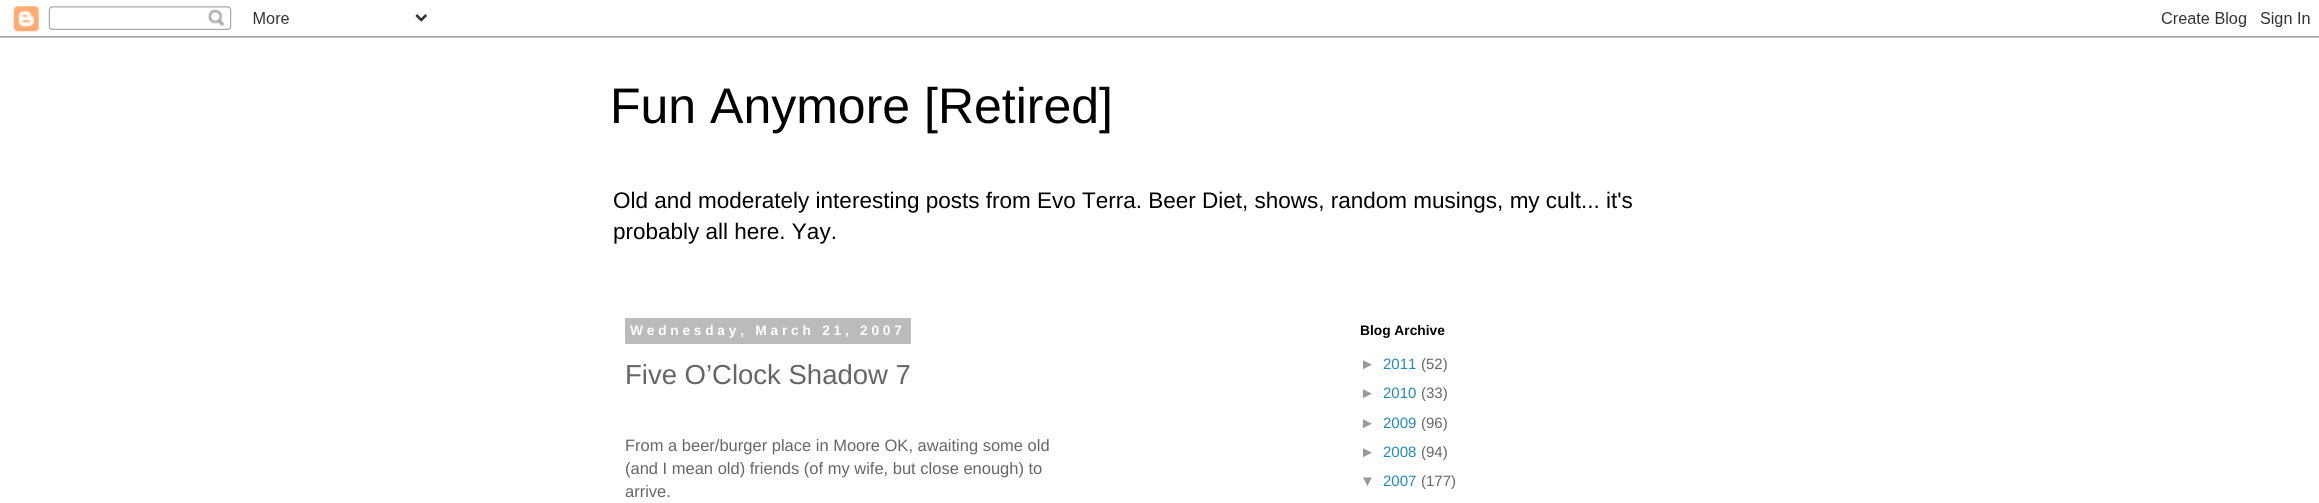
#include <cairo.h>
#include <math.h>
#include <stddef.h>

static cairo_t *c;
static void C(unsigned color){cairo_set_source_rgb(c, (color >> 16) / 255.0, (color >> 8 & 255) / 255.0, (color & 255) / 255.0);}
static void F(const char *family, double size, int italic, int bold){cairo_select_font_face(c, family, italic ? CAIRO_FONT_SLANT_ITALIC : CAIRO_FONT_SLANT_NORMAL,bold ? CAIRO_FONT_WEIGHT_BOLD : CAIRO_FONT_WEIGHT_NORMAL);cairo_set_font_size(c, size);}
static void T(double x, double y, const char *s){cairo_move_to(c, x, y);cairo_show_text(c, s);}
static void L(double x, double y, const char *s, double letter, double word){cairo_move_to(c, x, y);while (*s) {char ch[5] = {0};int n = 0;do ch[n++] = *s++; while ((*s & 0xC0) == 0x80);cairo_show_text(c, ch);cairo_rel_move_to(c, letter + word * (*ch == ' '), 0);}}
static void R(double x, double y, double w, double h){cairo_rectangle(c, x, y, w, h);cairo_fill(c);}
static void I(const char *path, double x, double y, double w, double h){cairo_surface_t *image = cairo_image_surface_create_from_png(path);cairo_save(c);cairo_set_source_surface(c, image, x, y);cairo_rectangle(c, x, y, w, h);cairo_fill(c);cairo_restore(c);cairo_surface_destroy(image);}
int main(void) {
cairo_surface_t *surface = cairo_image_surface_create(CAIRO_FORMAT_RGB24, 2319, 503);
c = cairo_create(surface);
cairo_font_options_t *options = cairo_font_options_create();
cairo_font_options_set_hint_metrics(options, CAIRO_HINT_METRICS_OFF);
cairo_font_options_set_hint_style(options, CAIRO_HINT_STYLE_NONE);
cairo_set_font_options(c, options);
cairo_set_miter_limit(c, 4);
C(0xffffff);
cairo_paint(c);
I("1.png",0,6,2319,32);
F("Liberation Sans",50,0,0);
C(0x000000);
T(610,123,"Fun Anymore [Retired]");
F("Liberation Sans",22.5,0,0);
T(613,208,"Old and moderately interesting posts from Evo Terra. Beer Diet, shows, random musings, my cult... it's");
T(613,239,"probably all here. Yay.");
C(0xbbbbbb);
R(625,318,286,26);
F("Liberation Sans",13.75,0,1);
C(0xffffff);
L(630,335,"Wednesday, March 21, 2007",3.75,0);
F("Liberation Sans",27.5,0,0);
C(0x666666);
T(625,384,"Five O’Clock Shadow 7");
F("Liberation Sans",16.5,0,0);
T(625,451,"From a beer/burger place in Moore OK, awaiting some old");
T(625,474,"(and I mean old) friends (of my wife, but close enough) to");
T(625,497,"arrive.");
F("Liberation Sans",13.75,0,1);
C(0x000000);
T(1360,335,"Blog Archive");
F("Liberation Sans",15,0,0);
C(0x999999);
T(1360,369,"►");
C(0x2288bb);
T(1383,369,"2011");
C(0x666666);
T(1421,369,"(52)");
C(0x999999);
T(1360,398,"►");
C(0x2288bb);
T(1383,398,"2010");
C(0x666666);
T(1421,398,"(33)");
C(0x999999);
T(1360,428,"►");
C(0x2288bb);
T(1383,428,"2009");
C(0x666666);
T(1421,428,"(96)");
C(0x999999);
T(1360,457,"►");
C(0x2288bb);
T(1383,457,"2008");
C(0x666666);
T(1421,457,"(94)");
C(0x999999);
T(1360,486,"▼");
C(0x2288bb);
T(1383,486,"2007");
C(0x666666);
T(1421,486,"(177)");
cairo_surface_write_to_png(surface, "o.png");
cairo_font_options_destroy(options);
cairo_destroy(c);
cairo_surface_destroy(surface);
return 0;
}
